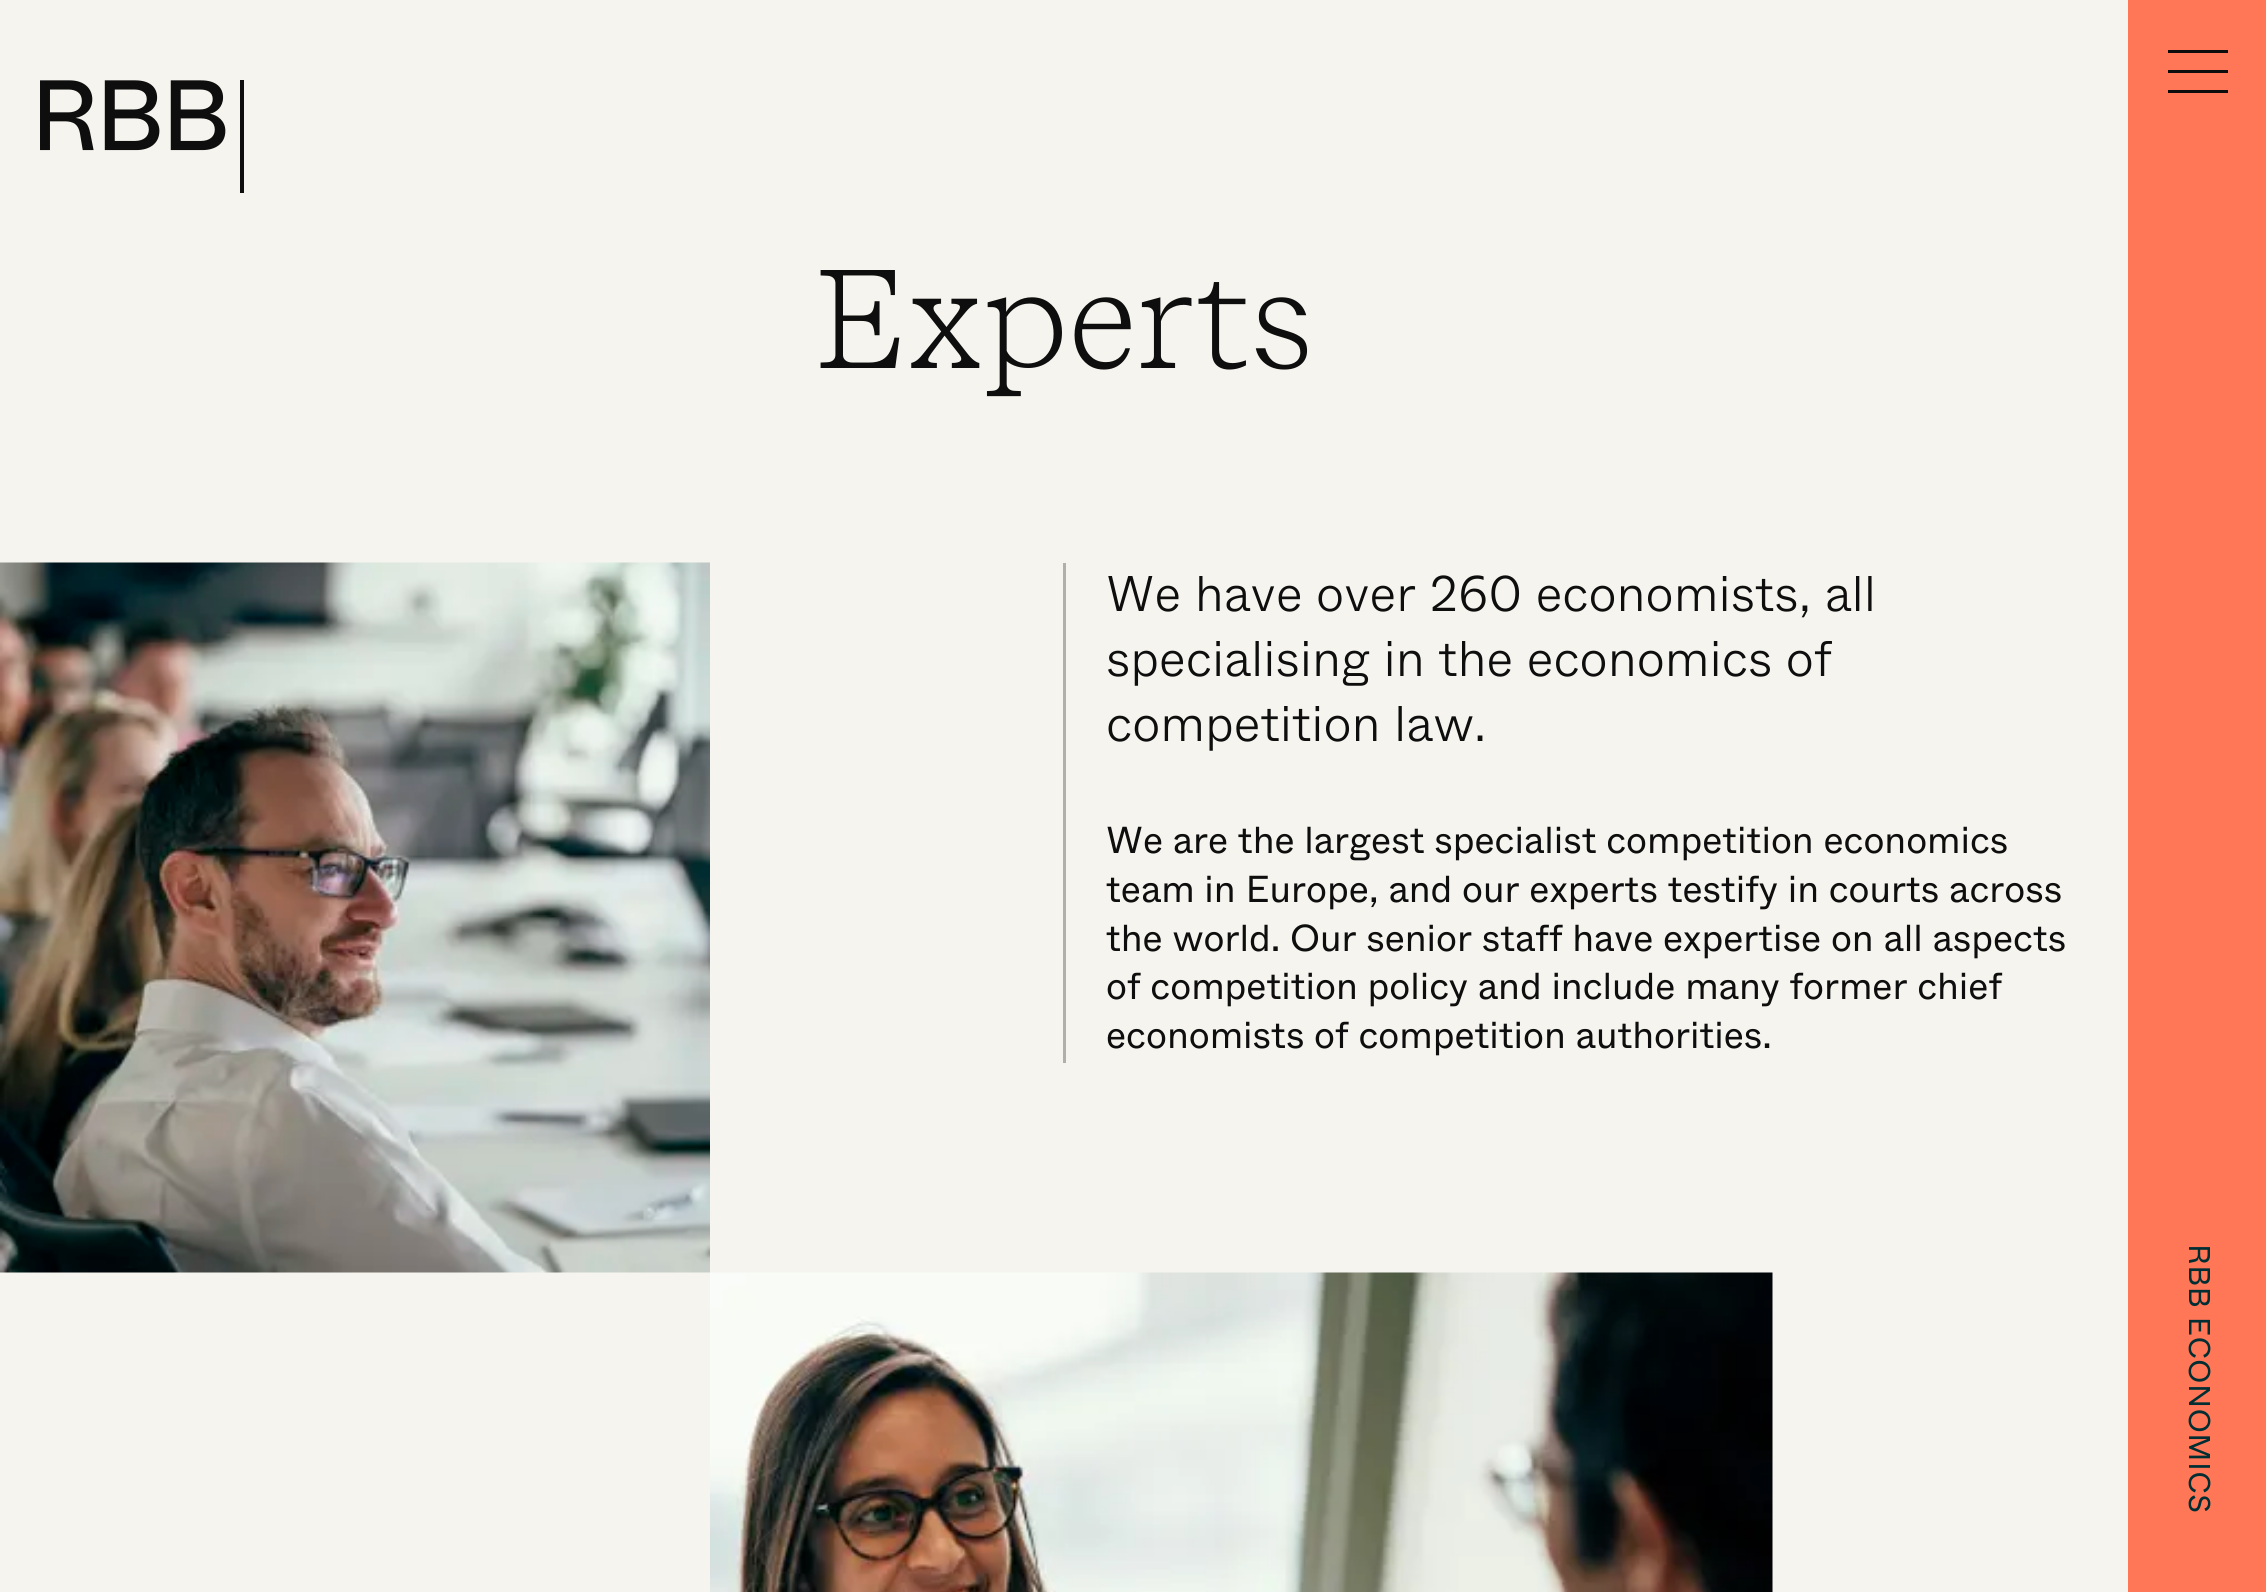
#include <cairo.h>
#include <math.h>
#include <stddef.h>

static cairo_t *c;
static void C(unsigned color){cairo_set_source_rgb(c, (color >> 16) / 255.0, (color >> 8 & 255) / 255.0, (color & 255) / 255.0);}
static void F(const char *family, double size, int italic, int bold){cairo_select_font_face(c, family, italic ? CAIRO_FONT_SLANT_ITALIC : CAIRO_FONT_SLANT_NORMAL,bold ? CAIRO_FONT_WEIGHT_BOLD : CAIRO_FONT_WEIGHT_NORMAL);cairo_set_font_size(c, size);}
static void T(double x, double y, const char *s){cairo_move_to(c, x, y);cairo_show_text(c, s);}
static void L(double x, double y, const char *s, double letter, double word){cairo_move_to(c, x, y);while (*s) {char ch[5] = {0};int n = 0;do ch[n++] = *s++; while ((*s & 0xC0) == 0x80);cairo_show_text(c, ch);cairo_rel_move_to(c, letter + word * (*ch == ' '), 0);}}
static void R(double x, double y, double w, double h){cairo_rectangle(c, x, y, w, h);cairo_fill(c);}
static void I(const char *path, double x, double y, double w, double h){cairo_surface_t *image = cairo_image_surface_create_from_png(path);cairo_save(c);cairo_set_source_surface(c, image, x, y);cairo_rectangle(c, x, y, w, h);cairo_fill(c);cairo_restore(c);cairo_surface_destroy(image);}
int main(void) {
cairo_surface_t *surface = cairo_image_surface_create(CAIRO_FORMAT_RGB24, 2266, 1592);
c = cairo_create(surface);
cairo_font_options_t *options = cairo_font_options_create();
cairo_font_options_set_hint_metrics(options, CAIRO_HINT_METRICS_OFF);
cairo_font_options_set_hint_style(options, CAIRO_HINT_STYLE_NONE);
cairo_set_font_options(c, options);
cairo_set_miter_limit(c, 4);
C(0xf5f4ee);
cairo_paint(c);
I("1.png",40,80,204,113);
F("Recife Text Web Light",140,0,0);
C(0x0e0e0e);
T(815,368,"Experts");
I("2.png",0,562,710,711);
C(0xb0afab);
R(1063,563,3,500);
F("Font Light",50,0,0);
C(0x0e0e0e);
T(1106,611,"We have over 260 economists, all");
T(1106,676,"specialising in the economics of");
T(1106,741,"competition law.");
F("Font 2 Light",37.5,0,0);
T(1106,853,"We are the largest specialist competition economics");
T(1106,902,"team in Europe, and our experts testify in courts across");
T(1106,951,"the world. Our senior staff have expertise on all aspects");
T(1106,999,"of competition policy and include many former chief");
T(1106,1048,"economists of competition authorities.");
I("3.png",710,1272,1063,320);
C(0xff7757);
R(2128,0,138,1592);
C(0x0e0e0e);
R(2168,50,60,3);
R(2168,70,60,3);
R(2168,90,60,3);
F("Font 2 Light",30,0,0);
C(0x002e33);
cairo_save(c);
cairo_translate(c,2189,1244);
cairo_rotate(c,90 * M_PI / 180);
L(0,0,"RBB ECONOMICS",.6,0);
cairo_restore(c);
cairo_surface_write_to_png(surface, "o.png");
cairo_font_options_destroy(options);
cairo_destroy(c);
cairo_surface_destroy(surface);
return 0;
}
